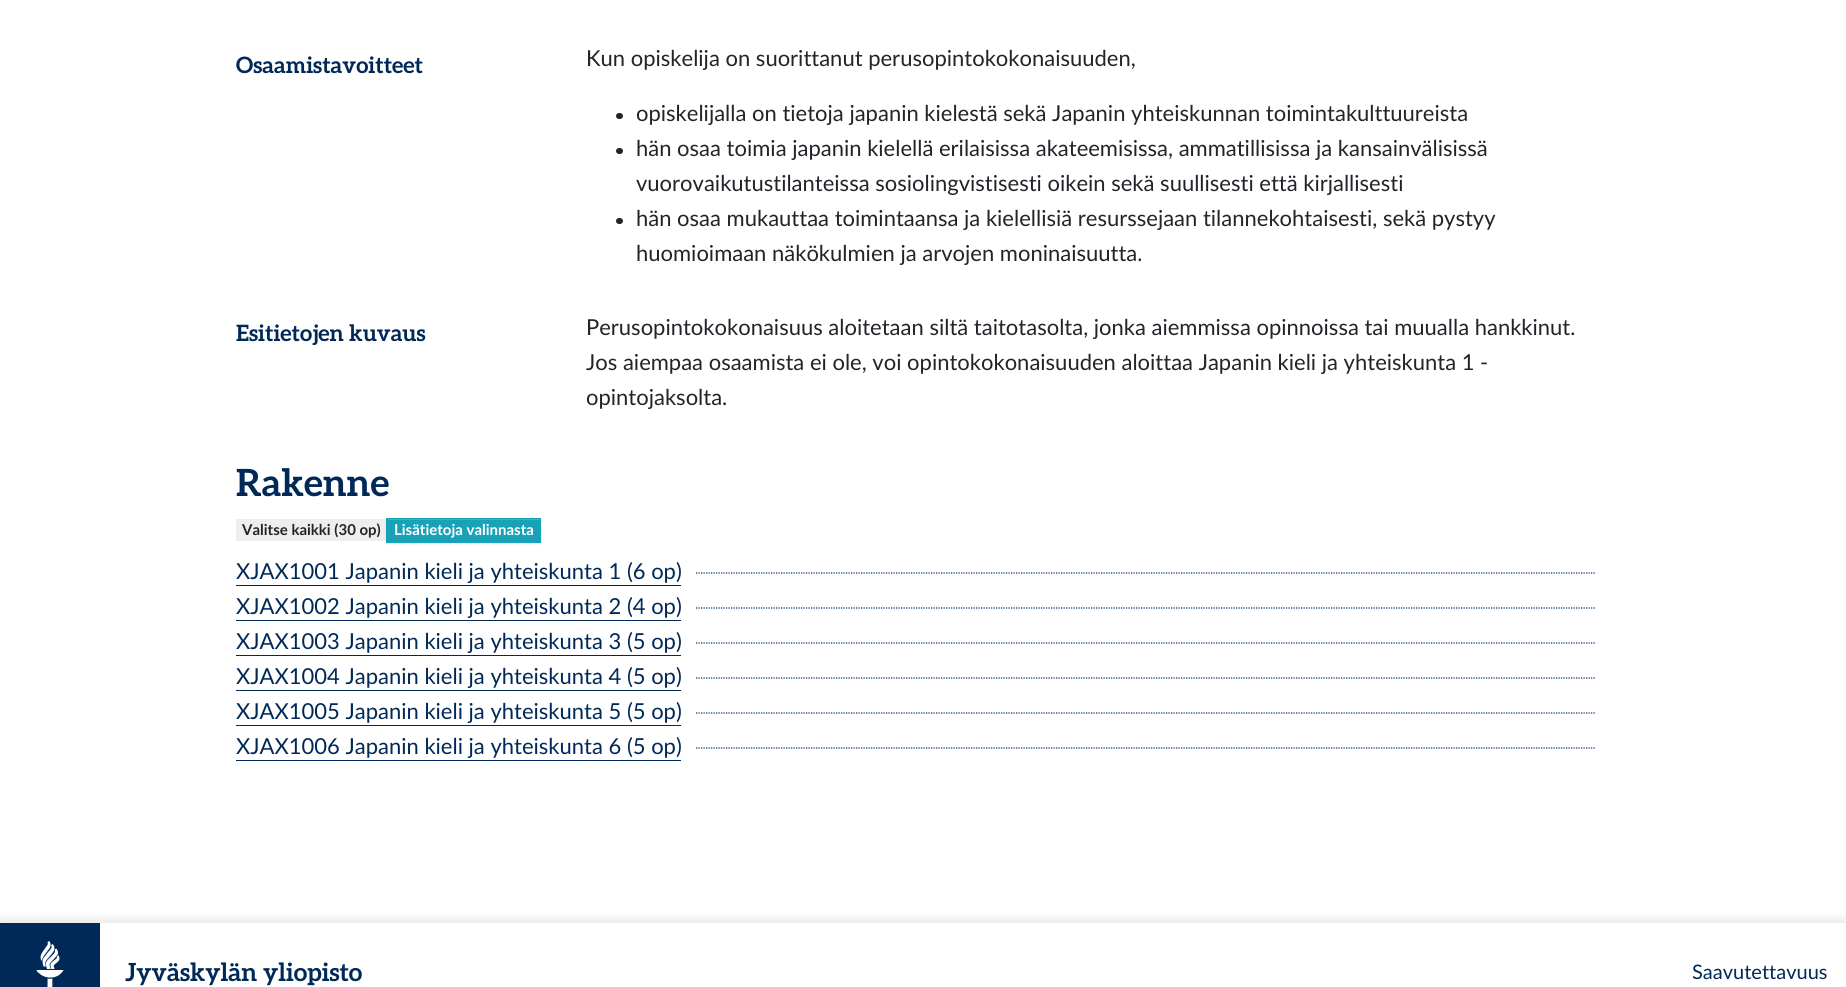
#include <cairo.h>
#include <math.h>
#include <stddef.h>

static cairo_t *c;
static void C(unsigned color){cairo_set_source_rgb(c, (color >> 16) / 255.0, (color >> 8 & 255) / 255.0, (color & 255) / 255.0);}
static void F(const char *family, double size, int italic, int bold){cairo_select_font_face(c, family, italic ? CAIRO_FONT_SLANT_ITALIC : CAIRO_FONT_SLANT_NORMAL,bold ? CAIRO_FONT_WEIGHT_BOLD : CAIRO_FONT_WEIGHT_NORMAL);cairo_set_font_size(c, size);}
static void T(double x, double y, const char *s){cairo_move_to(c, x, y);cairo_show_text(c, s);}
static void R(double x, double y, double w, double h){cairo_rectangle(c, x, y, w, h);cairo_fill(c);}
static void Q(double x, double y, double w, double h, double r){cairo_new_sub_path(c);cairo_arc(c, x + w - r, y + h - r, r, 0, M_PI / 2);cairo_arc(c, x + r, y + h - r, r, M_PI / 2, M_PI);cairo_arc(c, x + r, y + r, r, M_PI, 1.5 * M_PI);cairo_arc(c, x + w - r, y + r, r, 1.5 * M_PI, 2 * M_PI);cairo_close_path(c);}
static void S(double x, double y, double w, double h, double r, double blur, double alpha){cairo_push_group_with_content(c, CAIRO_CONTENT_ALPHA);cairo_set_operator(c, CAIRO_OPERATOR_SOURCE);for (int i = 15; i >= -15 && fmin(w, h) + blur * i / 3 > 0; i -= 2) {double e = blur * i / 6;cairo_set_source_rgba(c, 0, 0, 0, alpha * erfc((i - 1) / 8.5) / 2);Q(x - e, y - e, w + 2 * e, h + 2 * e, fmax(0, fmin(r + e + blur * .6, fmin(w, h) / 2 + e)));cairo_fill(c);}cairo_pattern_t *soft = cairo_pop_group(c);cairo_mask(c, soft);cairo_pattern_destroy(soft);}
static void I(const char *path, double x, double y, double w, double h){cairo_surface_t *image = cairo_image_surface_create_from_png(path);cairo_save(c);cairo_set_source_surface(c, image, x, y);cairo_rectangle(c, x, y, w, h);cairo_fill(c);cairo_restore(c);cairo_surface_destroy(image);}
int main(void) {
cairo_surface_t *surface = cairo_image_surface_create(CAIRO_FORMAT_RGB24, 1846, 987);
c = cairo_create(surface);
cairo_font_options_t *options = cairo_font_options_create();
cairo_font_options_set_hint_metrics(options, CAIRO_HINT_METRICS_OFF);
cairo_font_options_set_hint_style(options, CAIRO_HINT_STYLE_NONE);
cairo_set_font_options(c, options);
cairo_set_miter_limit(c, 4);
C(0xffffff);
cairo_paint(c);
F("Aleo",22.5,0,1);
C(0x002957);
T(236,73,"Osaamistavoitteet");
F("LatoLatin",22,0,0);
C(0x212529);
T(586,66,"Kun opiskelija on suorittanut perusopintokokonaisuuden,");
Q(616,113,7,6,3);
cairo_fill(c);
T(636,121,"opiskelijalla on tietoja japanin kielestä sekä Japanin yhteiskunnan toimintakulttuureista");
Q(616,148,7,6,3);
cairo_fill(c);
T(636,156,"hän osaa toimia japanin kielellä erilaisissa akateemisissa, ammatillisissa ja kansainvälisissä");
T(636,191,"vuorovaikutustilanteissa sosiolingvistisesti oikein sekä suullisesti että kirjallisesti");
Q(616,218,7,6,3);
cairo_fill(c);
T(636,226,"hän osaa mukauttaa toimintaansa ja kielellisiä resurssejaan tilannekohtaisesti, sekä pystyy");
T(636,261,"huomioimaan näkökulmien ja arvojen moninaisuutta.");
F("Aleo",22.5,0,1);
C(0x002957);
T(236,341,"Esitietojen kuvaus");
F("LatoLatin",22,0,0);
C(0x212529);
T(586,335,"Perusopintokokonaisuus aloitetaan siltä taitotasolta, jonka aiemmissa opinnoissa tai muualla hankkinut.");
T(586,370,"Jos aiempaa osaamista ei ole, voi opintokokonaisuuden aloittaa Japanin kieli ja yhteiskunta 1 -");
T(586,405,"opintojaksolta.");
F("Aleo",37.5,0,1);
C(0x002957);
T(236,496,"Rakenne");
C(0xeeeeee);
R(236,519,150,22);
F("LatoLatin",15,0,1);
C(0x212529);
T(242,535,"Valitse kaikki (30 op)");
C(0x000000);
S(386,519,155,25,0,.5,.07);
C(0x17a2b8);
R(386,518,155,25);
C(0x3ab0c3);
R(388,519,152,1);
C(0xffffff);
T(394,535,"Lisätietoja valinnasta");
F("LatoLatin",22,0,0);
C(0x002957);
T(236,579,"XJAX1001 Japanin kieli ja yhteiskunta 1 (6 op)");
R(236,585,445,1);
cairo_new_path(c);
cairo_move_to(c,696,573);
cairo_line_to(c,1596,573);
cairo_set_line_width(c,1.2);
cairo_set_dash(c,(double[]){1.25,1.25},2,0);
cairo_stroke(c);
T(236,614,"XJAX1002 Japanin kieli ja yhteiskunta 2 (4 op)");
R(236,620,445,1);
cairo_new_path(c);
cairo_move_to(c,696,608);
cairo_line_to(c,1596,608);
cairo_stroke(c);
T(236,649,"XJAX1003 Japanin kieli ja yhteiskunta 3 (5 op)");
R(236,655,445,1);
cairo_new_path(c);
cairo_move_to(c,696,643);
cairo_line_to(c,1596,643);
cairo_stroke(c);
T(236,684,"XJAX1004 Japanin kieli ja yhteiskunta 4 (5 op)");
R(236,690,445,1);
cairo_new_path(c);
cairo_move_to(c,696,678);
cairo_line_to(c,1596,678);
cairo_stroke(c);
T(236,719,"XJAX1005 Japanin kieli ja yhteiskunta 5 (5 op)");
R(236,725,445,1);
cairo_new_path(c);
cairo_move_to(c,696,713);
cairo_line_to(c,1596,713);
cairo_stroke(c);
T(236,754,"XJAX1006 Japanin kieli ja yhteiskunta 6 (5 op)");
R(236,760,445,1);
cairo_new_path(c);
cairo_move_to(c,696,748);
cairo_line_to(c,1596,748);
cairo_stroke(c);
cairo_save(c);
cairo_rectangle(c,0,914,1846,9);
cairo_clip(c);
C(0x000000);
S(0,919,1846,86,0,6,.1);
cairo_restore(c);
R(0,923,100,64);
I("1.png",36,941,28,46);
F("Aleo",25,0,1);
T(125,981,"Jyväskylän yliopisto");
F("LatoLatin",20,0,0);
T(1692,979,"Saavutettavuus");
cairo_surface_write_to_png(surface, "o.png");
cairo_font_options_destroy(options);
cairo_destroy(c);
cairo_surface_destroy(surface);
return 0;
}
